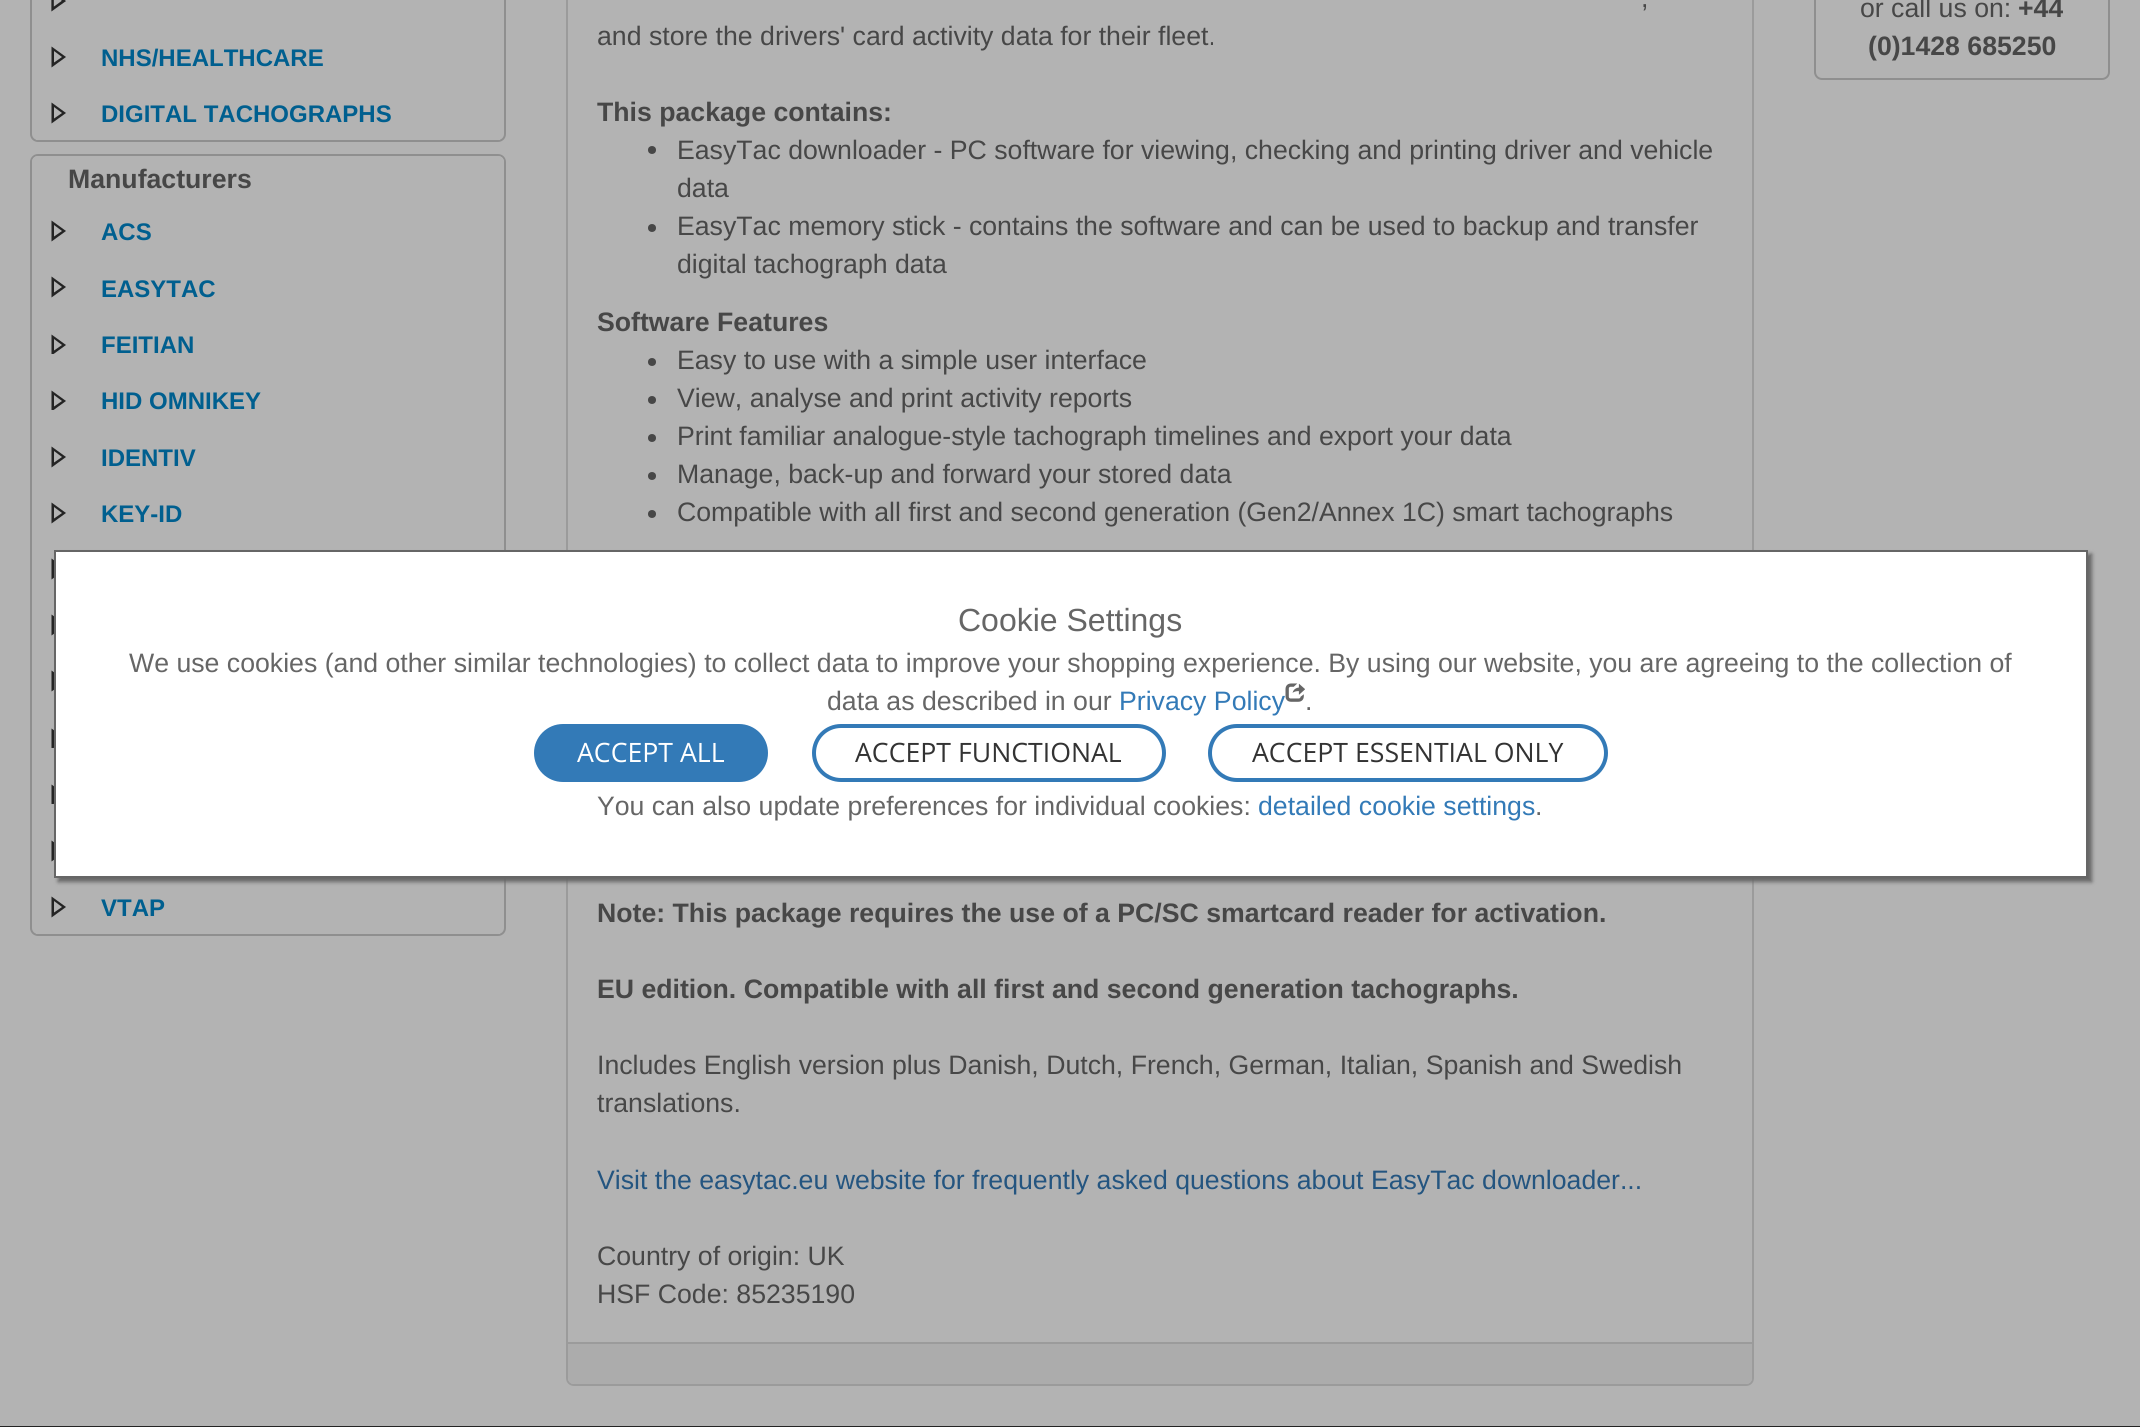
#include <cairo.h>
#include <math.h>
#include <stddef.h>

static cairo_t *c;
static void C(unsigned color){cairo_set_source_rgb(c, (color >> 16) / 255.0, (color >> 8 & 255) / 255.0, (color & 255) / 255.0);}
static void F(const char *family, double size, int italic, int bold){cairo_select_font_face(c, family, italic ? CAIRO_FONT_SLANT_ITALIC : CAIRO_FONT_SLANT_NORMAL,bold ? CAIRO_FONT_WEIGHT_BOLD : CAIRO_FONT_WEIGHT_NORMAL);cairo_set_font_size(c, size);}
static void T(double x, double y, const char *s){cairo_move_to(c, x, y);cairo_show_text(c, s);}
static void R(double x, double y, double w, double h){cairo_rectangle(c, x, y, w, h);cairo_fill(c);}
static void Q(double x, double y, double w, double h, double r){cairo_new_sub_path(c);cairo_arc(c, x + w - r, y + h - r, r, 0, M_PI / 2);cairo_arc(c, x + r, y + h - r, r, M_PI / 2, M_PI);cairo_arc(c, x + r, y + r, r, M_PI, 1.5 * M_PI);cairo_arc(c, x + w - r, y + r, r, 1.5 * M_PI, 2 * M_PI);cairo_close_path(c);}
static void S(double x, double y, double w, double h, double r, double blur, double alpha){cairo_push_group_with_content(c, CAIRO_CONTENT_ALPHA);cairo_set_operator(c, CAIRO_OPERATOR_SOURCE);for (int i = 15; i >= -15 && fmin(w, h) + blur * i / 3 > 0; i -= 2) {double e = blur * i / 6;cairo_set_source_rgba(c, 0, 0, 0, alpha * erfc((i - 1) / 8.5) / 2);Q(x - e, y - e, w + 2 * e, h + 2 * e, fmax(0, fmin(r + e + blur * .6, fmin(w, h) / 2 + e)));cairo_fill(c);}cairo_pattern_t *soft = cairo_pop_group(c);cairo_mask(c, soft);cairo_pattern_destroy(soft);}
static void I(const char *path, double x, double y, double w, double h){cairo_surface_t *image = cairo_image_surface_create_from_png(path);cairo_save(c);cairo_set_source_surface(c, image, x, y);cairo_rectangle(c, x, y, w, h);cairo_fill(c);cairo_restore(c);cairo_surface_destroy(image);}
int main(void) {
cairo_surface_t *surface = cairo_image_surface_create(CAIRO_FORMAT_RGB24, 2140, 1427);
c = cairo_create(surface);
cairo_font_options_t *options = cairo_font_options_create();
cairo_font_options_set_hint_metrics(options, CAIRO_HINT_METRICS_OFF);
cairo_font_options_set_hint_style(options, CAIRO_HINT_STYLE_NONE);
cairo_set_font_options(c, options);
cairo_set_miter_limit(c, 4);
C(0xb3b3b3);
cairo_paint(c);
Q(31,-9,474,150,7);
C(0x8f8f8f);
cairo_stroke(c);
I("1.png",51,0,15,12);
C(0x242424);
cairo_new_path(c);
cairo_move_to(c,51.5,67.5);
cairo_line_to(c,51.5,46.5);
cairo_line_to(c,66,57);
cairo_close_path(c);
cairo_move_to(c,54,51);
cairo_line_to(c,54,62.5);
cairo_line_to(c,62,57);
cairo_close_path(c);
cairo_fill(c);
F("Liberation Sans",24,0,1);
C(0x005f8f);
T(101,66,"NHS/HEALTHCARE");
C(0xb3b3b3);
R(36,139,464,1);
C(0x242424);
cairo_new_path(c);
cairo_move_to(c,51.5,123.5);
cairo_line_to(c,51.5,102.5);
cairo_line_to(c,66,113);
cairo_close_path(c);
cairo_move_to(c,54,107);
cairo_line_to(c,54,118.5);
cairo_line_to(c,62,113);
cairo_close_path(c);
cairo_fill(c);
C(0x005f8f);
T(101,122,"DIGITAL TACHOGRAPHS");
Q(31,155,474,780,7);
C(0x8f8f8f);
cairo_stroke(c);
C(0xb3b3b3);
cairo_new_path(c);
cairo_move_to(c,38,156);
cairo_line_to(c,498,156);
cairo_curve_to(c,501.5,156,504,158.5,504,162);
cairo_line_to(c,504,202);
cairo_line_to(c,32,202);
cairo_line_to(c,32,162);
cairo_curve_to(c,32,158.5,34.5,156,38,156);
cairo_close_path(c);
cairo_fill(c);
F("Liberation Sans",26.67,0,1);
C(0x474747);
T(68,188,"Manufacturers");
C(0x242424);
cairo_new_path(c);
cairo_move_to(c,51.5,241.5);
cairo_line_to(c,51.5,220.5);
cairo_line_to(c,66,231);
cairo_close_path(c);
cairo_move_to(c,54,225);
cairo_line_to(c,54,236.5);
cairo_line_to(c,62,231);
cairo_close_path(c);
cairo_fill(c);
F("Liberation Sans",24,0,1);
C(0x005f8f);
T(101,240,"ACS");
C(0x242424);
cairo_new_path(c);
cairo_move_to(c,51.5,297.5);
cairo_line_to(c,51.5,276.5);
cairo_line_to(c,66,287);
cairo_close_path(c);
cairo_move_to(c,54,281);
cairo_line_to(c,54,292.5);
cairo_line_to(c,62,287);
cairo_close_path(c);
cairo_fill(c);
C(0x005f8f);
T(101,297,"EASYTAC");
cairo_save(c);
cairo_rectangle(c,46,334,20,20);
cairo_clip(c);
C(0x242424);
cairo_new_path(c);
cairo_move_to(c,51.5,355.5);
cairo_line_to(c,51.5,334.5);
cairo_line_to(c,66,345);
cairo_close_path(c);
cairo_move_to(c,54,339);
cairo_line_to(c,54,350.5);
cairo_line_to(c,62,345);
cairo_close_path(c);
cairo_fill(c);
cairo_restore(c);
T(101,353,"FEITIAN");
cairo_save(c);
cairo_rectangle(c,46,390,20,20);
cairo_clip(c);
C(0x242424);
cairo_new_path(c);
cairo_move_to(c,51.5,411.5);
cairo_line_to(c,51.5,390.5);
cairo_line_to(c,66,401);
cairo_close_path(c);
cairo_move_to(c,54,395);
cairo_line_to(c,54,406.5);
cairo_line_to(c,62,401);
cairo_close_path(c);
cairo_fill(c);
cairo_restore(c);
T(101,409,"HID OMNIKEY");
C(0x242424);
cairo_new_path(c);
cairo_move_to(c,51.5,467.5);
cairo_line_to(c,51.5,446.5);
cairo_line_to(c,66,457);
cairo_close_path(c);
cairo_move_to(c,54,451);
cairo_line_to(c,54,462.5);
cairo_line_to(c,62,457);
cairo_close_path(c);
cairo_fill(c);
C(0x005f8f);
T(101,466,"IDENTIV");
C(0x242424);
cairo_new_path(c);
cairo_move_to(c,51.5,523.5);
cairo_line_to(c,51.5,502.5);
cairo_line_to(c,66,513);
cairo_close_path(c);
cairo_move_to(c,54,507);
cairo_line_to(c,54,518.5);
cairo_line_to(c,62,513);
cairo_close_path(c);
cairo_fill(c);
C(0x005f8f);
T(101,522,"KEY-ID");
C(0x242424);
cairo_new_path(c);
cairo_move_to(c,51.5,579.5);
cairo_line_to(c,51.5,558.5);
cairo_line_to(c,66,569);
cairo_close_path(c);
cairo_move_to(c,54,563);
cairo_line_to(c,54,574.5);
cairo_line_to(c,62,569);
cairo_close_path(c);
cairo_fill(c);
cairo_new_path(c);
cairo_move_to(c,51.5,635.5);
cairo_line_to(c,51.5,614.5);
cairo_line_to(c,66,625);
cairo_close_path(c);
cairo_move_to(c,54,619);
cairo_line_to(c,54,630.5);
cairo_line_to(c,62,625);
cairo_close_path(c);
cairo_fill(c);
cairo_new_path(c);
cairo_move_to(c,51.5,691.5);
cairo_line_to(c,51.5,670.5);
cairo_line_to(c,66,681);
cairo_close_path(c);
cairo_move_to(c,54,675);
cairo_line_to(c,54,686.5);
cairo_line_to(c,62,681);
cairo_close_path(c);
cairo_fill(c);
cairo_save(c);
cairo_rectangle(c,46,728,20,20);
cairo_clip(c);
cairo_new_path(c);
cairo_move_to(c,51.5,749.5);
cairo_line_to(c,51.5,728.5);
cairo_line_to(c,66,739);
cairo_close_path(c);
cairo_move_to(c,54,733);
cairo_line_to(c,54,744.5);
cairo_line_to(c,62,739);
cairo_close_path(c);
cairo_fill(c);
cairo_restore(c);
cairo_save(c);
cairo_rectangle(c,46,784,20,20);
cairo_clip(c);
cairo_new_path(c);
cairo_move_to(c,51.5,805.5);
cairo_line_to(c,51.5,784.5);
cairo_line_to(c,66,795);
cairo_close_path(c);
cairo_move_to(c,54,789);
cairo_line_to(c,54,800.5);
cairo_line_to(c,62,795);
cairo_close_path(c);
cairo_fill(c);
cairo_restore(c);
cairo_new_path(c);
cairo_move_to(c,51.5,861.5);
cairo_line_to(c,51.5,840.5);
cairo_line_to(c,66,851);
cairo_close_path(c);
cairo_move_to(c,54,845);
cairo_line_to(c,54,856.5);
cairo_line_to(c,62,851);
cairo_close_path(c);
cairo_fill(c);
C(0xb3b3b3);
R(36,933,464,1);
C(0x242424);
cairo_new_path(c);
cairo_move_to(c,51.5,917.5);
cairo_line_to(c,51.5,896.5);
cairo_line_to(c,66,907);
cairo_close_path(c);
cairo_move_to(c,54,901);
cairo_line_to(c,54,912.5);
cairo_line_to(c,62,907);
cairo_close_path(c);
cairo_fill(c);
C(0x005f8f);
T(101,916,"VTAP");
cairo_new_path(c);
cairo_move_to(c,567,-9);
cairo_line_to(c,1746,-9);
cairo_curve_to(c,1750,-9,1753,-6,1753,-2);
cairo_line_to(c,1753,1378);
cairo_curve_to(c,1753,1382,1750,1385,1746,1385);
cairo_line_to(c,574,1385);
cairo_curve_to(c,570,1385,567,1382,567,1378);
cairo_close_path(c);
C(0x9b9b9b);
cairo_stroke(c);
F("Liberation Sans",26.67,0,0);
C(0x474747);
T(1641,7,",");
T(597,45,"and store the drivers' card activity data for their fleet.");
F("Liberation Sans",26.67,0,1);
T(597,121,"This package contains:");
cairo_new_path(c);
cairo_arc(c,652,150,4,0,2 * M_PI);
cairo_fill(c);
F("Liberation Sans",26.67,0,0);
T(677,159,"EasyTac downloader - PC software for viewing, checking and printing driver and vehicle");
T(677,197,"data");
cairo_new_path(c);
cairo_arc(c,652,228,4,0,2 * M_PI);
cairo_fill(c);
T(677,235,"EasyTac memory stick - contains the software and can be used to backup and transfer");
T(677,273,"digital tachograph data");
F("Liberation Sans",26.67,0,1);
T(597,331,"Software Features");
cairo_new_path(c);
cairo_arc(c,652,362,4,0,2 * M_PI);
cairo_fill(c);
F("Liberation Sans",26.67,0,0);
T(677,369,"Easy to use with a simple user interface");
cairo_new_path(c);
cairo_arc(c,652,400,4,0,2 * M_PI);
cairo_fill(c);
T(677,407,"View, analyse and print activity reports");
cairo_new_path(c);
cairo_arc(c,652,438,4,0,2 * M_PI);
cairo_fill(c);
T(677,445,"Print familiar analogue-style tachograph timelines and export your data");
cairo_new_path(c);
cairo_arc(c,652,476,4,0,2 * M_PI);
cairo_fill(c);
T(677,483,"Manage, back-up and forward your stored data");
cairo_new_path(c);
cairo_arc(c,652,514,4,0,2 * M_PI);
cairo_fill(c);
T(677,521,"Compatible with all first and second generation (Gen2/Annex 1C) smart tachographs");
F("Liberation Sans",26.67,0,1);
T(597,922,"Note: This package requires the use of a PC/SC smartcard reader for activation.");
T(597,998,"EU edition. Compatible with all first and second generation tachographs.");
F("Liberation Sans",26.67,0,0);
T(597,1074,"Includes English version plus Danish, Dutch, French, German, Italian, Spanish and Swedish");
T(597,1112,"translations.");
C(0x245580);
T(597,1189,"Visit the easytac.eu website for frequently asked questions about EasyTac downloader...");
C(0x474747);
T(597,1265,"Country of origin: UK");
T(597,1303,"HSF Code: 85235190");
C(0xacacac);
cairo_new_path(c);
cairo_move_to(c,568,1342);
cairo_line_to(c,1752,1342);
cairo_line_to(c,1752,1378);
cairo_curve_to(c,1752,1381.5,1749.5,1384,1746,1384);
cairo_line_to(c,574,1384);
cairo_curve_to(c,570.5,1384,568,1381.5,568,1378);
cairo_close_path(c);
cairo_fill(c);
C(0x9b9b9b);
R(568,1342,1184,2);
Q(1815,-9,294,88,7);
C(0x8f8f8f);
cairo_stroke(c);
C(0x474747);
T(1860,17,"or call us on:");
F("Liberation Sans",26.67,0,1);
T(2018,17,"+44");
T(1868,55,"(0)1428 685250");
C(0x242424);
R(0,1426,2140,1);
C(0x666666);
S(58,554,2034,328,0,2,1);
C(0xffffff);
cairo_rectangle(c,55,551,2032,326);
cairo_fill_preserve(c);
C(0x666666);
cairo_stroke(c);
F("Liberation Sans",32,0,0);
T(958,631,"Cookie Settings");
F("Liberation Sans",26.67,0,0);
T(129,672,"We use cookies (and other similar technologies) to collect data to improve your shopping experience. By using our website, you are agreeing to the collection of");
T(827,710,"data as described in our");
C(0x337ab7);
T(1119,710,"Privacy Policy");
I("2.png",1285,683,20,19);
C(0x666666);
T(1305,710,".");
C(0x337ab7);
Q(534,724,234,58,29);
cairo_fill(c);
F("Open Sans",26.67,0,0);
C(0xffffff);
T(577,762,"ACCEPT ALL");
Q(814,726,350,54,27);
C(0x337ab7);
cairo_set_line_width(c,4);
cairo_stroke(c);
C(0x333333);
T(855,762,"ACCEPT FUNCTIONAL");
Q(1210,726,396,54,27);
C(0x337ab7);
cairo_stroke(c);
C(0x333333);
T(1252,762,"ACCEPT ESSENTIAL ONLY");
F("Liberation Sans",26.67,0,0);
C(0x666666);
T(597,815,"You can also update preferences for individual cookies:");
C(0x337ab7);
T(1258,815,"detailed cookie settings");
C(0x666666);
T(1535,815,".");
cairo_surface_write_to_png(surface, "o.png");
cairo_font_options_destroy(options);
cairo_destroy(c);
cairo_surface_destroy(surface);
return 0;
}
